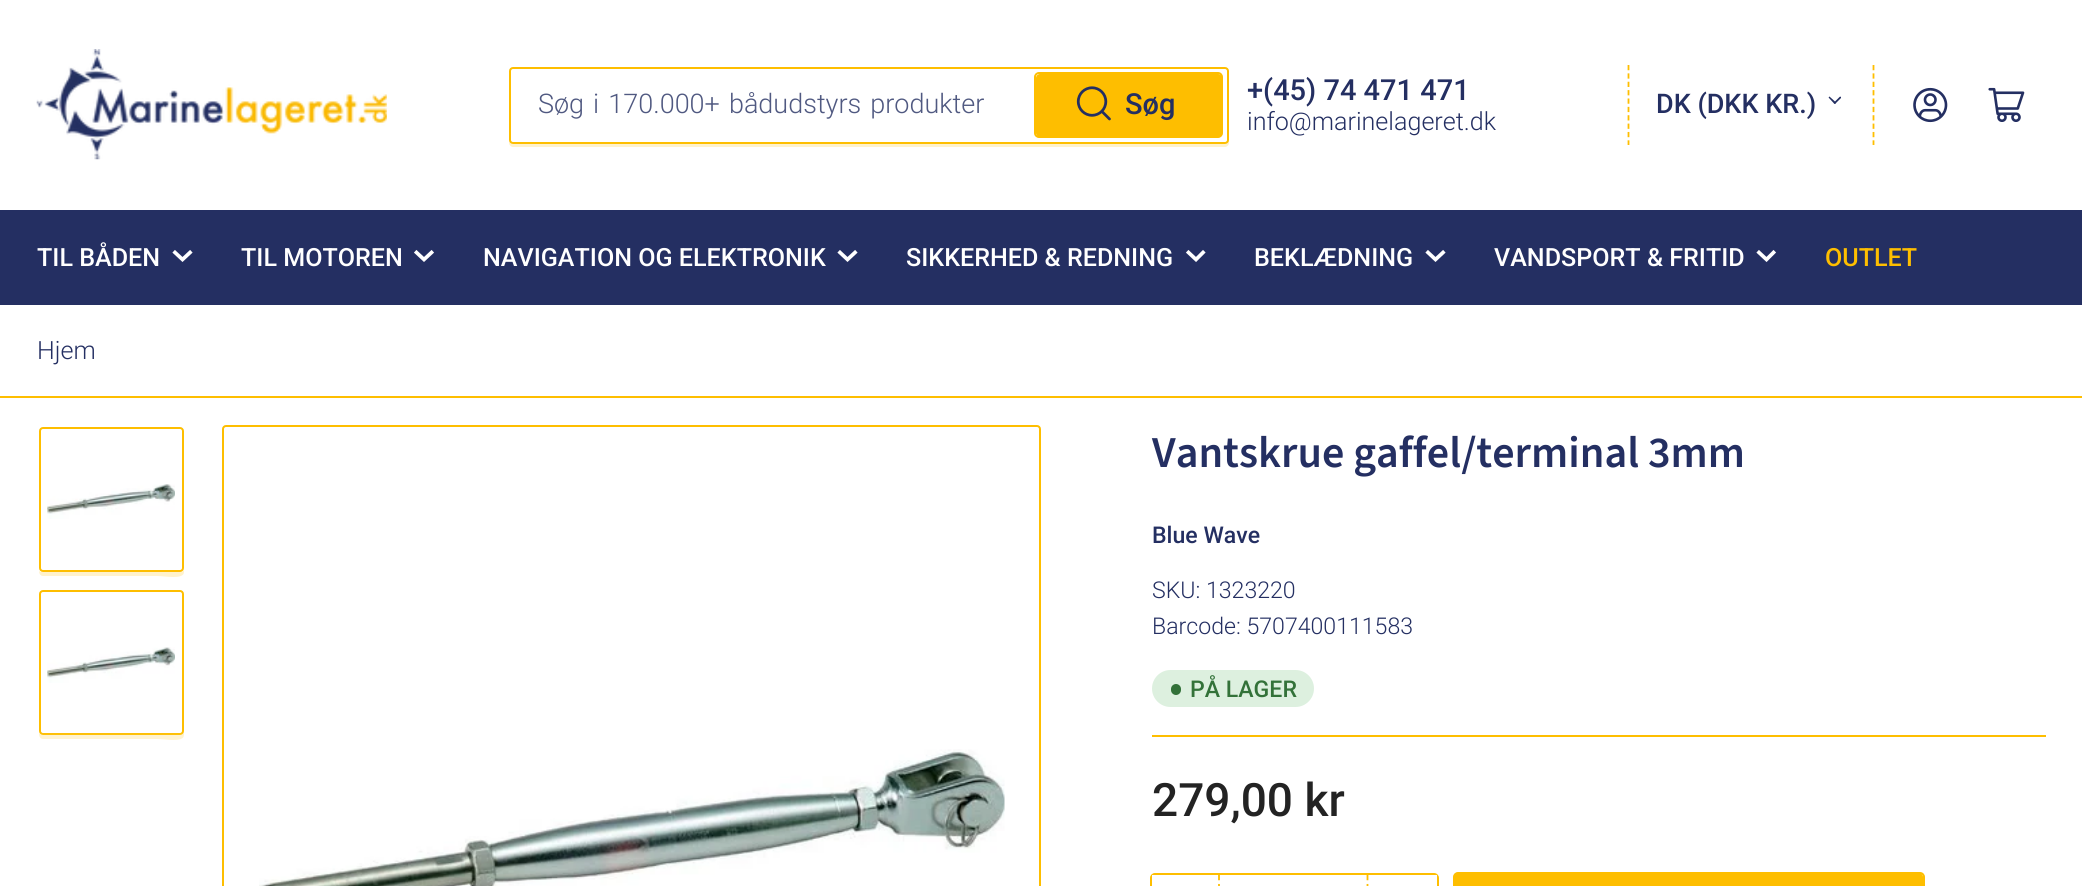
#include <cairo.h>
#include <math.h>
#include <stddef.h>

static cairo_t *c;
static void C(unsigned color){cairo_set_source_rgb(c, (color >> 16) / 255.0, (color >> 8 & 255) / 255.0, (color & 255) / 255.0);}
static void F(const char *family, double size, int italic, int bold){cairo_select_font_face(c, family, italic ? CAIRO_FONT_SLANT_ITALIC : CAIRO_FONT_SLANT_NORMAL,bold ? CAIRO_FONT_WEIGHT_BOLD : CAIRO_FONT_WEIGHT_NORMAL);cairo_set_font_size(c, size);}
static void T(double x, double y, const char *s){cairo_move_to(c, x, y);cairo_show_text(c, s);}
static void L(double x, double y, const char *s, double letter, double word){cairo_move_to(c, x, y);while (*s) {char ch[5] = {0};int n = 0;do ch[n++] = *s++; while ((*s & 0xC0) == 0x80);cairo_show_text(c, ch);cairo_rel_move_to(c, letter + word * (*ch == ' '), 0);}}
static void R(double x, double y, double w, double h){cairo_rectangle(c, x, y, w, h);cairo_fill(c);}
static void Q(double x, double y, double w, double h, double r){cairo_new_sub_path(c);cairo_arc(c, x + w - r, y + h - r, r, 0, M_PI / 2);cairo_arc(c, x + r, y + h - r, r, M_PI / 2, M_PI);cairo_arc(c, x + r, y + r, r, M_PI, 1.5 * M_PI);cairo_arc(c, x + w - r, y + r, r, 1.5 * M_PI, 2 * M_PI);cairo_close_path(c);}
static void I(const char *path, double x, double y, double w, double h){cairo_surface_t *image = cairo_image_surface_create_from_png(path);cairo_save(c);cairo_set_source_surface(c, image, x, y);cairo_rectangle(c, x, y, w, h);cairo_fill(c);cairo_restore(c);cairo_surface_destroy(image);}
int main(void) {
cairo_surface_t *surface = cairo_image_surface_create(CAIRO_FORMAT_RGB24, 2082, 886);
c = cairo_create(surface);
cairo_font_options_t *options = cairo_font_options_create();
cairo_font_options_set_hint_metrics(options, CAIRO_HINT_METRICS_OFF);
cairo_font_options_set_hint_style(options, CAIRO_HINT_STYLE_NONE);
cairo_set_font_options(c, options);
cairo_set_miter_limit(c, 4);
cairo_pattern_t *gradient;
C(0xffffff);
cairo_paint(c);
I("1.png",36,49,351,111);
C(0xfff2cc);
cairo_new_path(c);
cairo_move_to(c,509,73);
cairo_line_to(c,509,143);
cairo_curve_to(c,509,145,511,147,513,147);
cairo_line_to(c,1225,147);
cairo_curve_to(c,1227,147,1229,145,1229,143);
cairo_line_to(c,1229,74);
cairo_line_to(c,1228,72);
cairo_line_to(c,1228,140);
cairo_curve_to(c,1228,142,1227,144,1225,144);
cairo_line_to(c,513,144);
cairo_curve_to(c,511,144,509,142,509,140);
cairo_close_path(c);
cairo_fill(c);
C(0xffffff);
Q(510,68,718,75,3);
cairo_fill_preserve(c);
C(0xfebe00);
cairo_stroke(c);
F("Roboto Light",27,0,0);
C(0x505981);
L(538,113,"Søg i 170.000+ bådudstyrs produkter",0,2.5);
Q(1035,73,187,64,4);
C(0xfebe00);
cairo_stroke(c);
Q(1036,74,186,63,4);
cairo_fill(c);
I("2.png",1076,86,35,35);
F("Roboto Medium",29,0,0);
C(0x242f62);
T(1125,114,"Søg");
T(1247,100,"+(45) 74 471 471");
F("Roboto Light",25.1,0,0);
T(1247,130,"info@marinelageret.dk");
cairo_new_path(c);
cairo_move_to(c,1873.5,65);
cairo_line_to(c,1873.5,145);
C(0xfebe00);
cairo_set_line_width(c,1.8);
cairo_set_dash(c,(double[]){5.25,3.12},2,0);
cairo_stroke(c);
cairo_new_path(c);
cairo_move_to(c,1628.5,65);
cairo_line_to(c,1628.5,145);
cairo_stroke(c);
F("Roboto Medium",27,0,0);
C(0x242f62);
T(1656,113,"DK (DKK KR.)");
cairo_new_path(c);
cairo_move_to(c,1830,97);
cairo_line_to(c,1835.5,102);
cairo_curve_to(c,1835.5,102.5,1835.5,103,1835.5,103.5);
cairo_curve_to(c,1835,104,1834.5,104,1834,103.5);
cairo_line_to(c,1829,98);
cairo_curve_to(c,1828.5,98,1828.5,97.5,1829,97);
cairo_curve_to(c,1829,96.5,1830,96.5,1830,97);
cairo_close_path(c);
cairo_fill(c);
cairo_new_path(c);
cairo_move_to(c,1834.5,102);
cairo_line_to(c,1839.5,97);
cairo_curve_to(c,1840,96.5,1840.5,96.5,1841,97);
cairo_curve_to(c,1841,97.5,1841,98,1841,98);
cairo_line_to(c,1835.5,103.5);
cairo_curve_to(c,1835.5,104,1834.5,104,1834.5,103.5);
cairo_curve_to(c,1834,103,1834,102.5,1834.5,102);
cairo_close_path(c);
cairo_fill(c);
I("3.png",1913,87,35,36);
I("4.png",1988,87,37,35);
R(0,210,2082,95);
F("Roboto Medium",25.1,0,0);
C(0xffffff);
T(37,266,"TIL BÅDEN");
cairo_new_path(c);
cairo_move_to(c,190,252.5);
cairo_line_to(c,182.5,259.5);
cairo_line_to(c,175,252.5);
cairo_set_line_width(c,3.7);
cairo_set_line_cap(c,CAIRO_LINE_CAP_SQUARE);
cairo_set_dash(c,NULL,0,0);
cairo_stroke(c);
T(241,266,"TIL MOTOREN");
cairo_new_path(c);
cairo_move_to(c,431.5,252.5);
cairo_line_to(c,424,259.5);
cairo_line_to(c,416.5,252.5);
cairo_stroke(c);
T(483,266,"NAVIGATION OG ELEKTRONIK");
cairo_new_path(c);
cairo_move_to(c,855,252.5);
cairo_line_to(c,847.5,259.5);
cairo_line_to(c,840,252.5);
cairo_stroke(c);
T(906,266,"SIKKERHED & REDNING");
cairo_new_path(c);
cairo_move_to(c,1203,252.5);
cairo_line_to(c,1196,259.5);
cairo_line_to(c,1188.5,252.5);
cairo_stroke(c);
T(1254,266,"BEKLÆDNING");
cairo_new_path(c);
cairo_move_to(c,1443,252.5);
cairo_line_to(c,1435.5,259.5);
cairo_line_to(c,1428,252.5);
cairo_stroke(c);
T(1494,266,"VANDSPORT & FRITID");
cairo_new_path(c);
cairo_move_to(c,1773.5,252.5);
cairo_line_to(c,1766.5,259.5);
cairo_line_to(c,1759,252.5);
cairo_stroke(c);
C(0xfebe00);
T(1825,266,"OUTLET");
R(0,396,2082,2);
F("Roboto Light",25.1,0,0);
C(0x242f62);
T(37,359,"Hjem");
C(0xfff2cc);
cairo_new_path(c);
cairo_move_to(c,39,571);
cairo_curve_to(c,39,573,40,576,43,576);
cairo_line_to(c,157,576);
cairo_curve_to(c,165,576,184,580,184,572);
cairo_line_to(c,184,434);
cairo_line_to(c,184,569);
cairo_curve_to(c,184,571,182,572,180,572);
cairo_line_to(c,42,572);
cairo_curve_to(c,41,572,40,572,39,571);
cairo_close_path(c);
cairo_fill(c);
C(0xffffff);
Q(40,428,143,143,3);
cairo_fill_preserve(c);
C(0xfebe00);
cairo_set_line_width(c,2);
cairo_set_line_cap(c,CAIRO_LINE_CAP_BUTT);
cairo_stroke(c);
I("5.png",47,484,128,35);
C(0xfff2cc);
cairo_new_path(c);
cairo_move_to(c,39,733);
cairo_curve_to(c,39,736,40,739,43,739);
cairo_line_to(c,157,739);
cairo_curve_to(c,165,739,184,743,184,735);
cairo_line_to(c,184,596);
cairo_line_to(c,184,732);
cairo_curve_to(c,184,733,182,735,180,735);
cairo_line_to(c,42,735);
cairo_curve_to(c,41,735,40,734,39,733);
cairo_close_path(c);
cairo_fill(c);
C(0xffffff);
Q(40,591,143,143,3);
cairo_fill_preserve(c);
C(0xfebe00);
cairo_stroke(c);
I("6.png",47,647,128,36);
gradient = cairo_pattern_create_linear(111,793,111,732);
cairo_pattern_add_color_stop_rgba(gradient,0,1,1,1,1);
cairo_pattern_add_color_stop_rgba(gradient,1,1,1,1,0);
cairo_set_source(c,gradient);
cairo_pattern_destroy(gradient);
R(40,733,144,7);
Q(223,426,817,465,3);
C(0xfebe00);
cairo_stroke(c);
I("7.png",259,749,746,137);
R(1152,735,894,2);
F("Source Sans Pro SemiBold",44.1,0,0);
C(0x242f62);
T(1152,467,"Vantskrue gaffel/terminal 3mm");
F("Roboto Medium",23.1,0,0);
T(1152,543,"Blue Wave");
F("Roboto Light",23.1,0,0);
T(1152,598,"SKU: 1323220");
T(1152,634,"Barcode: 5707400111583");
C(0xddf0df);
Q(1152,670,162,37,18.5);
cairo_fill(c);
C(0x337239);
Q(1171,684,10,11,5);
cairo_fill(c);
F("Roboto Medium",23.1,0,0);
T(1190,697,"PÅ LAGER");
F("Roboto Medium",46,0,0);
C(0x232323);
T(1152,816,"279,00 kr");
Q(1151,874,287,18,4);
C(0xfebe00);
cairo_stroke(c);
C(0xffffff);
R(1152,875,3,3);
cairo_new_path(c);
cairo_move_to(c,1367.5,875);
cairo_line_to(c,1367.5,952);
C(0xfebe00);
cairo_set_line_width(c,1.8);
cairo_set_dash(c,(double[]){5.25,3.71},2,0);
cairo_stroke(c);
cairo_new_path(c);
cairo_move_to(c,1219,875);
cairo_line_to(c,1219,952);
cairo_stroke(c);
C(0xffffff);
R(1434,875,3,3);
Q(1454,873,470,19,4);
C(0xfebe00);
cairo_set_line_width(c,2);
cairo_set_dash(c,NULL,0,0);
cairo_stroke(c);
Q(1454,873,469,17,4);
cairo_fill(c);
cairo_surface_write_to_png(surface, "o.png");
cairo_font_options_destroy(options);
cairo_destroy(c);
cairo_surface_destroy(surface);
return 0;
}
